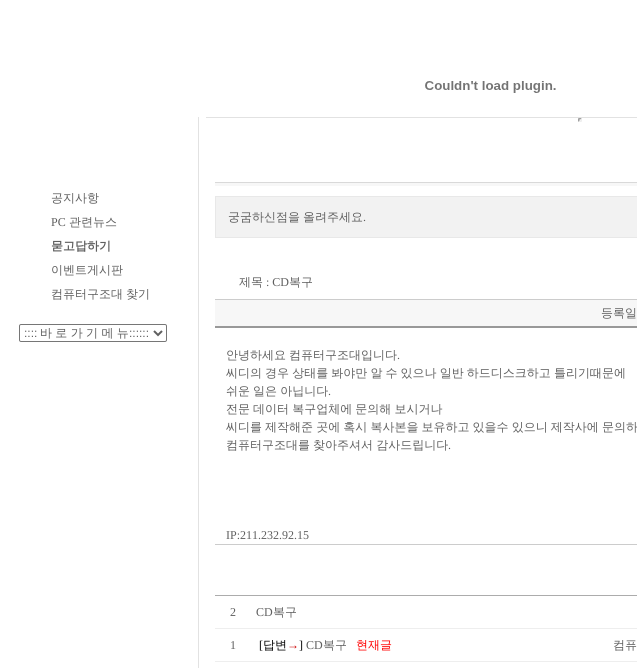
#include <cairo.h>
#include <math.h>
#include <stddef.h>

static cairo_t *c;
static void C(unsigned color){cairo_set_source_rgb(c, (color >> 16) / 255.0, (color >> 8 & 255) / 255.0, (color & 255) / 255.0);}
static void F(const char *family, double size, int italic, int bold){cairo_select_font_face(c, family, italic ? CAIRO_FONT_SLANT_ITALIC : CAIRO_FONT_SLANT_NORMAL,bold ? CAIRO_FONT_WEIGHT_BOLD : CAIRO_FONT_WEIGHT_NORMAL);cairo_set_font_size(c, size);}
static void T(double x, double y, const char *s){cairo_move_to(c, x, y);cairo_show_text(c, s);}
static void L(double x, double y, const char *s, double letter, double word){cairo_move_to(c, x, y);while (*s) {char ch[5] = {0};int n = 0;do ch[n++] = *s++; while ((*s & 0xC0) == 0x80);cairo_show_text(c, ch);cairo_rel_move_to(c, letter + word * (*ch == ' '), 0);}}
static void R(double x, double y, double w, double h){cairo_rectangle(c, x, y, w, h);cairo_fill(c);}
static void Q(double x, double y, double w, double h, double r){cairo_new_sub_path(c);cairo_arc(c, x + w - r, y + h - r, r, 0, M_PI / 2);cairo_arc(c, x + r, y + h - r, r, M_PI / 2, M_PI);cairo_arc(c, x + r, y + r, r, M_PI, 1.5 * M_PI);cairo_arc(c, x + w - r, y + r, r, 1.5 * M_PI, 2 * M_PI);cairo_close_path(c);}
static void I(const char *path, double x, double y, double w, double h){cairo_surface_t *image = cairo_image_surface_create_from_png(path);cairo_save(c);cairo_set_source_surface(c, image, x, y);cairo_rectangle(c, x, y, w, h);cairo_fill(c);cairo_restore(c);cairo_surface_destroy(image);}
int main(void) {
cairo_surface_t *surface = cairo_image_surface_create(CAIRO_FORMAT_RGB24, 637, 668);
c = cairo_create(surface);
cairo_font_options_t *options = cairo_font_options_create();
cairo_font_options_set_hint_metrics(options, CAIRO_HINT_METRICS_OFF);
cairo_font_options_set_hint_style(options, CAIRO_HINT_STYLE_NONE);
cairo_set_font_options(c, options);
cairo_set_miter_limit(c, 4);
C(0xffffff);
cairo_paint(c);
I("1.png",425,81,131,12);
F("WenQuanYi Zen Hei Medium",12,0,0);
C(0x5f5f5f);
T(51,202,"공지사항");
F("Liberation Serif",12,0,0);
T(51,226,"PC");
F("WenQuanYi Zen Hei Medium",12,0,0);
T(69,226,"관련뉴스");
F("WenQuanYi Zen Hei",12,0,1);
T(51,250,"묻고답하기");
F("WenQuanYi Zen Hei Medium",12,0,0);
T(51,274,"이벤트게시판");
L(51,298,"컴퓨터구조대 찾기",0,-.5);
Q(19.5,324.5,147,17,1.5);
C(0x767676);
cairo_set_line_width(c,1);
cairo_stroke(c);
cairo_new_path(c);
cairo_move_to(c,154,331);
cairo_line_to(c,158,335);
cairo_line_to(c,162,331);
C(0x5f5f5f);
cairo_set_line_width(c,2);
cairo_stroke(c);
F("Liberation Sans",12,0,0);
T(24,337,"::::");
F("WenQuanYi Zen Hei Medium",12,0,0);
L(40,337,"바 로 가 기 메 뉴",0,-.25);
F("Liberation Sans",12,0,0);
T(129,337,"::::::");
C(0xe2e2e2);
R(198,117,1,551);
R(206,117,431,1);
C(0x9f9f9f);
cairo_new_path(c);
cairo_move_to(c,578,118);
cairo_line_to(c,582,118);
cairo_line_to(c,580,120);
cairo_close_path(c);
cairo_fill(c);
C(0xeeeeee);
cairo_new_path(c);
cairo_move_to(c,582,118);
cairo_line_to(c,582,122);
cairo_line_to(c,580,120);
cairo_close_path(c);
cairo_fill(c);
cairo_new_path(c);
cairo_move_to(c,582,122);
cairo_line_to(c,578,122);
cairo_line_to(c,580,120);
cairo_close_path(c);
cairo_fill(c);
C(0x9f9f9f);
cairo_new_path(c);
cairo_move_to(c,578,122);
cairo_line_to(c,578,118);
cairo_line_to(c,580,120);
cairo_close_path(c);
cairo_fill(c);
C(0xd9d9d9);
R(215,182,422,1);
C(0xf7f7f7);
R(215,183,422,3);
C(0xe8e8e8);
R(215,196,422,42);
C(0xf2f2f2);
R(216,197,421,40);
F("WenQuanYi Zen Hei Medium",12,0,0);
C(0x5f5f5f);
L(228,221,"궁굼하신점을 올려주세요",0,-.5);
F("Liberation Serif",12,0,0);
T(363,221,".");
F("WenQuanYi Zen Hei Medium",12,0,0);
T(239,286,"제목");
F("Liberation Serif",12,0,0);
T(266,286,": CD");
F("WenQuanYi Zen Hei Medium",12,0,0);
T(289,286,"복구");
C(0xcccccc);
R(215,299,422,1);
C(0xf7f7f7);
R(215,300,422,26);
C(0x5f5f5f);
T(601,317,"등록일");
C(0x999999);
R(215,326,422,2);
C(0x5f5f5f);
L(226,359,"안녕하세요 컴퓨터구조대입니다",0,-.5);
F("Liberation Serif",12,0,0);
T(397,359,".");
F("WenQuanYi Zen Hei Medium",12,0,0);
L(226,377,"씨디의 경우 상태를 봐야만 알 수 있으나 일반 하드디스크하고 틀리기때문에",0,-.5);
L(226,395,"쉬운 일은 아닙니다",0,-.5);
F("Liberation Serif",12,0,0);
T(328,395,".");
F("WenQuanYi Zen Hei Medium",12,0,0);
L(226,413,"전문 데이터 복구업체에 문의해 보시거나",0,-.5);
L(226,431,"씨디를 제작해준 곳에 혹시 복사본을 보유하고 있을수 있으니 제작사에 문의하",0,-.5);
L(226,449,"컴퓨터구조대를 찾아주셔서 감사드립니다",0,-.5);
F("Liberation Serif",12,0,0);
T(448,449,".");
T(226,539,"IP:211.232.92.15");
C(0xcccccc);
R(215,544,422,1);
C(0xacacac);
R(215,595,422,1);
C(0x5f5f5f);
T(230,616,"2");
T(256,616,"CD");
F("WenQuanYi Zen Hei Medium",12,0,0);
T(273,616,"복구");
C(0xeeeeee);
R(215,628,422,1);
F("Liberation Serif",12,0,0);
C(0x5f5f5f);
T(230,649,"1");
C(0x000000);
T(259,649,"[");
F("WenQuanYi Zen Hei Medium",12,0,0);
T(263,649,"답변");
F("Liberation Serif",12,0,0);
C(0xcc0000);
T(287,649,"→");
C(0x000000);
T(299,649,"]");
C(0x5f5f5f);
T(306,649,"CD");
F("WenQuanYi Zen Hei Medium",12,0,0);
T(323,649,"복구");
C(0xff0000);
T(356,649,"현재글");
C(0x5f5f5f);
T(613,649,"컴퓨");
C(0xeeeeee);
R(215,661,422,1);
cairo_surface_write_to_png(surface, "o.png");
cairo_font_options_destroy(options);
cairo_destroy(c);
cairo_surface_destroy(surface);
return 0;
}
